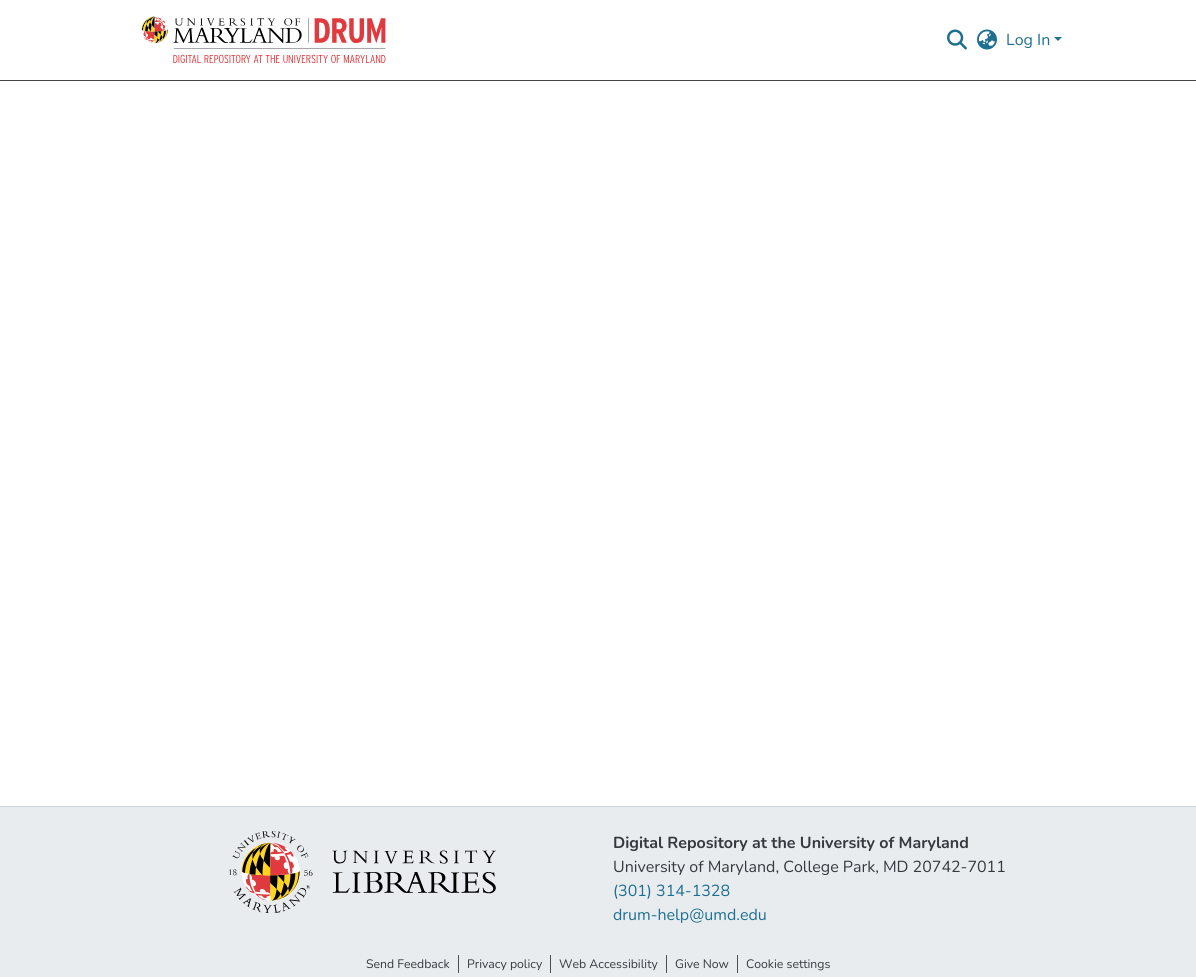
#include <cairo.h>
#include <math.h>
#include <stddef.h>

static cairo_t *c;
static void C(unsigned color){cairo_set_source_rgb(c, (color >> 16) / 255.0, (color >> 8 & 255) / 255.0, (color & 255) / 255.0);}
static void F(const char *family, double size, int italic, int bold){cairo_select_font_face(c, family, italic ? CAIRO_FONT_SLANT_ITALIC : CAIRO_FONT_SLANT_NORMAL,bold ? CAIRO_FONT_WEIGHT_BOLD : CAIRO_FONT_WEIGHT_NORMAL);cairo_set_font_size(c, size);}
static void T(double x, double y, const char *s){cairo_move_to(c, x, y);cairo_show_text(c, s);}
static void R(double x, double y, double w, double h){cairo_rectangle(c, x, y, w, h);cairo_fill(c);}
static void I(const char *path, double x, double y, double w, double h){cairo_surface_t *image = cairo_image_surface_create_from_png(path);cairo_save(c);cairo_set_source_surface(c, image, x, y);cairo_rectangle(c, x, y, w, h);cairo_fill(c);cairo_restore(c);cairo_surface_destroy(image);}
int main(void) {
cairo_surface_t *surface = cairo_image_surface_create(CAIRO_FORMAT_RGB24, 1196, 977);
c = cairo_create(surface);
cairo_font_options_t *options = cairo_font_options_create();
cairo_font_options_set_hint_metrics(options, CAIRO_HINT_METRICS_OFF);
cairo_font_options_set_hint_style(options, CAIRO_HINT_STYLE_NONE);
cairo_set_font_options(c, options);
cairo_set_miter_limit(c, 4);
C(0xffffff);
cairo_paint(c);
C(0x454545);
R(0,80,1196,1);
I("1.png",141,16,245,47);
I("2.png",947,29,20,21);
I("3.png",977,29,20,21);
F("Nunito",16,0,0);
C(0x1e6f90);
T(1006,45,"Log In");
cairo_new_path(c);
cairo_move_to(c,1054,37);
cairo_line_to(c,1062,37);
cairo_line_to(c,1058,41);
cairo_close_path(c);
cairo_fill(c);
C(0xe9ecef);
R(0,807,1196,170);
C(0xced4da);
R(0,806,1196,1);
I("4.png",228,831,268,82);
F("Nunito",16,0,1);
C(0x343a40);
T(613,848,"Digital Repository at the University of Maryland");
F("Nunito",16,0,0);
T(613,872,"University of Maryland, College Park, MD 20742-7011");
C(0x1e6f90);
T(613,896,"(301) 314-1328");
T(613,920,"drum-help@umd.edu");
F("Nunito",12.25,0,0);
C(0x343a40);
T(366,968,"Send Feedback");
C(0x495057);
R(458,955,1,18);
C(0x343a40);
T(467,968,"Privacy policy");
C(0x495057);
R(550,955,1,18);
C(0x343a40);
T(559,968,"Web Accessibility");
C(0x495057);
R(666,955,1,18);
C(0x343a40);
T(675,968,"Give Now");
C(0x495057);
R(737,955,1,18);
C(0x343a40);
T(746,968,"Cookie settings");
cairo_surface_write_to_png(surface, "o.png");
cairo_font_options_destroy(options);
cairo_destroy(c);
cairo_surface_destroy(surface);
return 0;
}
